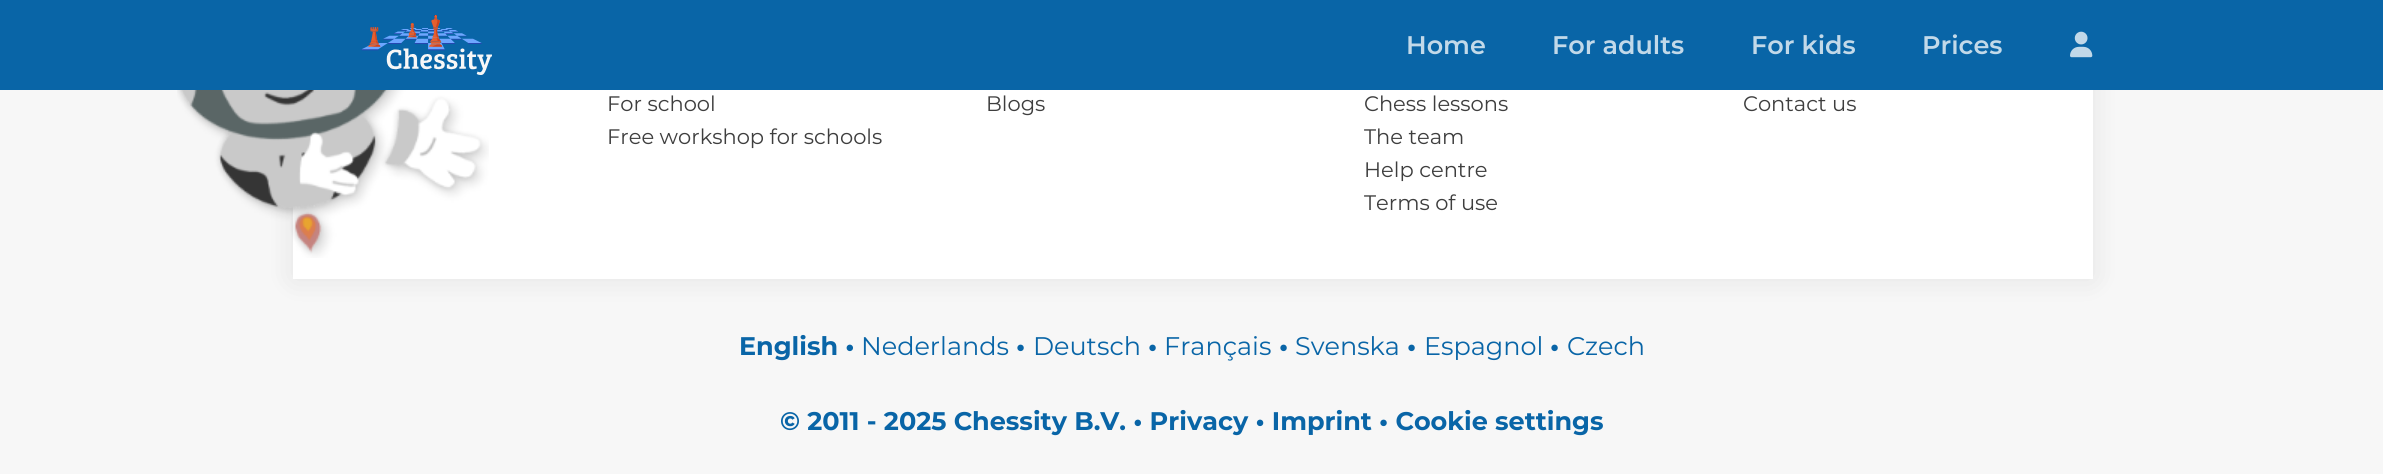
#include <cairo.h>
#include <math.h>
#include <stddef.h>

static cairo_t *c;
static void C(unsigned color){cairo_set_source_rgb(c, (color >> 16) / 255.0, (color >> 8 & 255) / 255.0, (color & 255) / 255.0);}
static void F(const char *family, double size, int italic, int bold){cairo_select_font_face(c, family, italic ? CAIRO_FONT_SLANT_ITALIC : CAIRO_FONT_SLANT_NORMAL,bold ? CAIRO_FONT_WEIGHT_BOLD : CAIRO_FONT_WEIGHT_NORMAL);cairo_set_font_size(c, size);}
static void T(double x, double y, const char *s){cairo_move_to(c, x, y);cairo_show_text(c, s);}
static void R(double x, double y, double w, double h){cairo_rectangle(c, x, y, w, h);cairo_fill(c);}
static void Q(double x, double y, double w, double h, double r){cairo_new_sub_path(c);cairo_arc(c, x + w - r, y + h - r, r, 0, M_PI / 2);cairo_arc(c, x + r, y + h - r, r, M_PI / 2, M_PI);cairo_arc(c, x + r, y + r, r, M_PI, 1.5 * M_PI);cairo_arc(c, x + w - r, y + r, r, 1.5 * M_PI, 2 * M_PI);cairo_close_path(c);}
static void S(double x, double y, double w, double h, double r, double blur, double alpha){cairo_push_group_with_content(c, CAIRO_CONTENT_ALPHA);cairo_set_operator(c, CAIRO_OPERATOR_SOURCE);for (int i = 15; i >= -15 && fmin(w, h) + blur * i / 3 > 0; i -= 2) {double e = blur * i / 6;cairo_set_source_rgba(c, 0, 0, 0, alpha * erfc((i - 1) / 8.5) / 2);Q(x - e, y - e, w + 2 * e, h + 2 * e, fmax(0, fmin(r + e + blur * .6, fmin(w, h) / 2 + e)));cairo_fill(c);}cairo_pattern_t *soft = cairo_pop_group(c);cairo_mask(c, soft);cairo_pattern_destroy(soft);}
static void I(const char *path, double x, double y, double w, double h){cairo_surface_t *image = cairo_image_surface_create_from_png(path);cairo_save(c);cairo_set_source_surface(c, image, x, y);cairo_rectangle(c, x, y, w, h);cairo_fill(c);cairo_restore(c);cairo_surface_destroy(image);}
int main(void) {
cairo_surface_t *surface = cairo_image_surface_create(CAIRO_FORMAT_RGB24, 2383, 474);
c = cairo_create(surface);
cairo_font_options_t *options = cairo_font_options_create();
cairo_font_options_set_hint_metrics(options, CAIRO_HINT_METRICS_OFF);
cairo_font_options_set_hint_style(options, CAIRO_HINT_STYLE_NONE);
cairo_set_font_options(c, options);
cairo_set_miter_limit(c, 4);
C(0xf7f7f7);
cairo_paint(c);
C(0x000000);
S(293,-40,1800,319,0,15,.08);
C(0x0965a7);
R(0,0,2383,90);
I("1.png",361,15,131,60);
F("Montserrat SemiBold",25.5,0,0);
C(0xc2d9e9);
T(1406,54,"Home");
T(1552,54,"For adults");
T(1751,54,"For kids");
T(1922,54,"Prices");
I("2.png",2070,31,23,27);
C(0xffffff);
R(293,90,1800,189);
I("3.png",177,90,312,168);
F("Montserrat",21,0,0);
C(0x3e3e3e);
T(607,111,"For school");
T(607,144,"Free workshop for schools");
T(986,111,"Blogs");
T(1364,111,"Chess lessons");
T(1364,144,"The team");
T(1364,177,"Help centre");
T(1364,210,"Terms of use");
T(1743,111,"Contact us");
F("Montserrat",25.5,0,1);
C(0x0965a7);
T(739,355,"English •");
F("Montserrat",25.5,0,0);
T(861,355,"Nederlands");
F("Montserrat",25.5,0,1);
T(1016,355,"•");
F("Montserrat",25.5,0,0);
T(1033,355,"Deutsch");
F("Montserrat",25.5,0,1);
T(1148,355,"•");
F("Montserrat",25.5,0,0);
T(1164,355,"Français");
F("Montserrat",25.5,0,1);
T(1279,355,"•");
F("Montserrat",25.5,0,0);
T(1295,355,"Svenska");
F("Montserrat",25.5,0,1);
T(1407,355,"•");
F("Montserrat",25.5,0,0);
T(1424,355,"Espagnol");
F("Montserrat",25.5,0,1);
T(1550,355,"•");
F("Montserrat",25.5,0,0);
T(1567,355,"Czech");
F("Montserrat",25.5,0,1);
T(780,430,"© 2011 - 2025 Chessity B.V. • Privacy • Imprint • Cookie settings");
cairo_surface_write_to_png(surface, "o.png");
cairo_font_options_destroy(options);
cairo_destroy(c);
cairo_surface_destroy(surface);
return 0;
}
